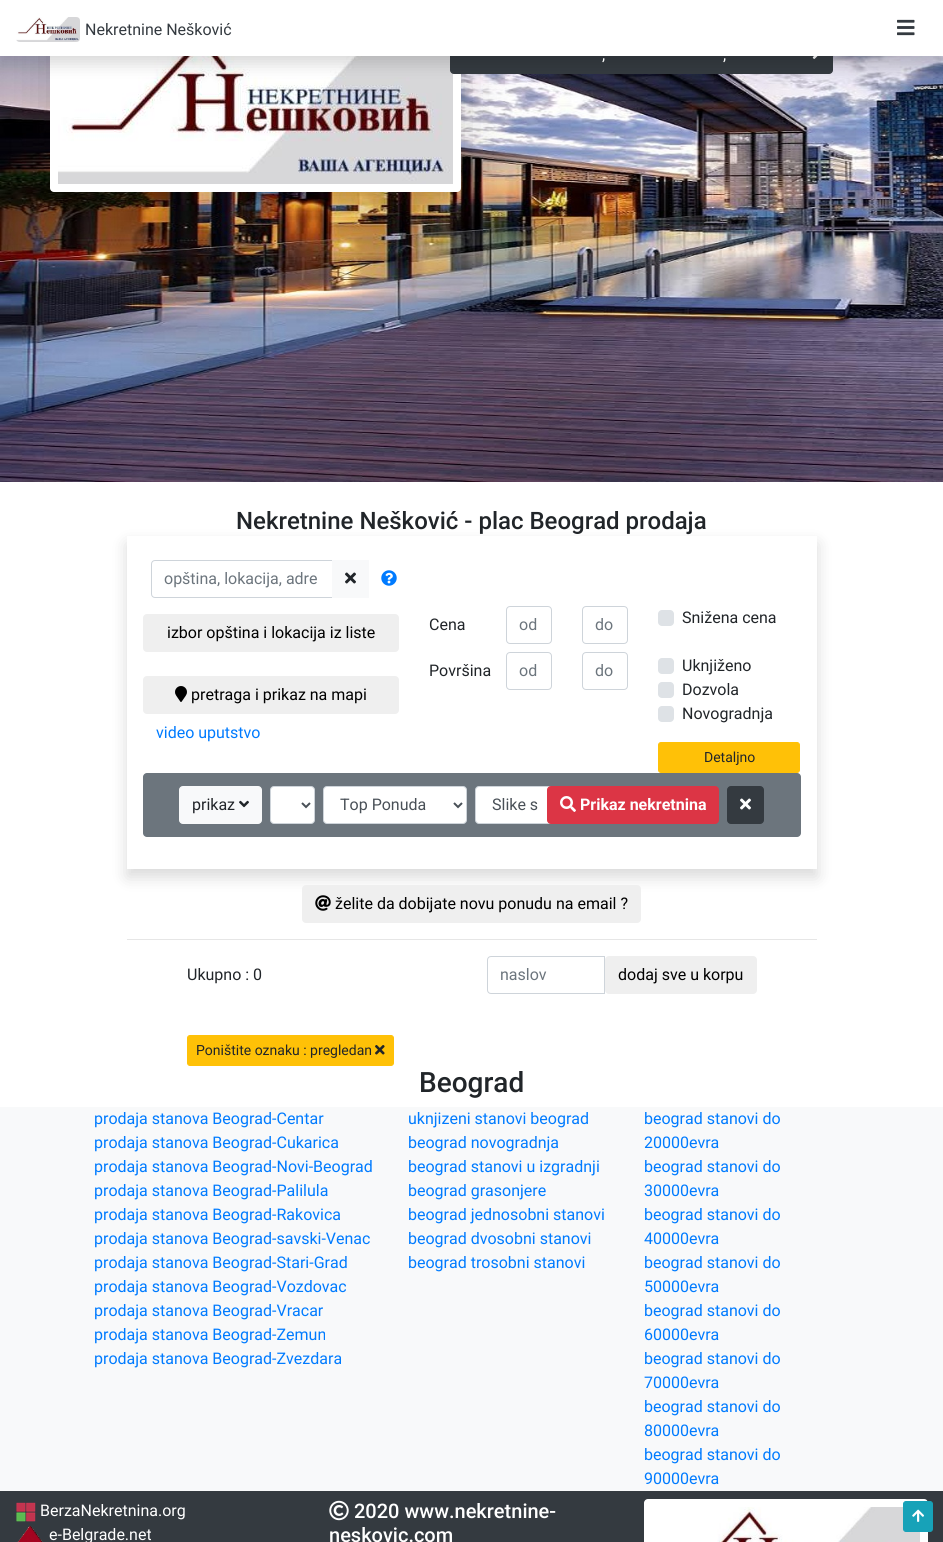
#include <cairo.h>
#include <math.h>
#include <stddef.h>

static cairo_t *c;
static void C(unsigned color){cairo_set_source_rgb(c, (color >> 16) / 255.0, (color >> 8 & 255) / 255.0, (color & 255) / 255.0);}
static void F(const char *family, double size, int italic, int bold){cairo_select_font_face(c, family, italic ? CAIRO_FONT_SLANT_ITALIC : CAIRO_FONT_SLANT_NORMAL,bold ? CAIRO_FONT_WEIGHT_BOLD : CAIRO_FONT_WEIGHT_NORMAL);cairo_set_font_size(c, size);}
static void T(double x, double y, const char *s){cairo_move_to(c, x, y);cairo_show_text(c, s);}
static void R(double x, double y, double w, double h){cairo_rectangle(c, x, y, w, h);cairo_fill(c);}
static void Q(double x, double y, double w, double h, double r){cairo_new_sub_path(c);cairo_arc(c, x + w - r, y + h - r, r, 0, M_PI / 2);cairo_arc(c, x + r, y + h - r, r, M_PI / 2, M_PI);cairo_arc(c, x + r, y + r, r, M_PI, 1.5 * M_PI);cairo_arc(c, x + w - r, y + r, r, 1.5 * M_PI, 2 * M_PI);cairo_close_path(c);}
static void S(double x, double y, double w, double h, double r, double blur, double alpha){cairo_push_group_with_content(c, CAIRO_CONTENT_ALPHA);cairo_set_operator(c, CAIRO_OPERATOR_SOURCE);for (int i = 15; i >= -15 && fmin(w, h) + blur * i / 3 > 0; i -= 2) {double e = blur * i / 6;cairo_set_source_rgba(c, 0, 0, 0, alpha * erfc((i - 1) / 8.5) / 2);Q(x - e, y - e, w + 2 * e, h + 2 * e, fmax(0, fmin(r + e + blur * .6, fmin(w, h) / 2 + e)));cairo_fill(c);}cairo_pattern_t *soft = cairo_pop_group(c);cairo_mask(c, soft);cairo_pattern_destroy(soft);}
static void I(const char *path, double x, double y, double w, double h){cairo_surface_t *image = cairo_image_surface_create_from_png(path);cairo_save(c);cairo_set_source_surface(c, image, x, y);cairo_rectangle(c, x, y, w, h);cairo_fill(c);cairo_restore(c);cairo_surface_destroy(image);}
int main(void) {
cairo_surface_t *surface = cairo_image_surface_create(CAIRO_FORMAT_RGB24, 943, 1542);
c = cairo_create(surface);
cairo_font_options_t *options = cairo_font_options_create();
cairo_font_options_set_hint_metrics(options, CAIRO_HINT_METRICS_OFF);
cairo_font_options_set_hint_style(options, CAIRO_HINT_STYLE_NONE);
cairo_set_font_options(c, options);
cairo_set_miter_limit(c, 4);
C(0xffffff);
cairo_paint(c);
I("3.png",0,56,943,426);
C(0x000000);
S(50,37,411,171,4,24,.18);
C(0xffffff);
Q(50,21,411,171,4);
cairo_fill(c);
I("4.png",58,56,395,128);
C(0x343a40);
Q(450.5,36.5,382,37,3.5);
cairo_fill_preserve(c);
cairo_set_line_width(c,1);
cairo_stroke(c);
I("5.png",812,56,6,3);
C(0x000000);
S(0,8,943,56,0,8,.15);
C(0xffffff);
R(0,0,943,56);
I("1.png",16,17,64,25);
F("Roboto",16,0,0);
C(0x343a40);
T(85,35,"Nekretnine Nešković");
I("2.png",897,19,18,17);
C(0xffffff);
T(602,60,",");
T(723,60,",");
cairo_save(c);
cairo_set_fill_rule(c,CAIRO_FILL_RULE_EVEN_ODD);
cairo_new_path(c);
cairo_move_to(c,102,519);
cairo_line_to(c,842,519);
cairo_line_to(c,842,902);
cairo_line_to(c,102,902);
cairo_close_path(c);
cairo_move_to(c,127,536);
cairo_line_to(c,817,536);
cairo_line_to(c,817,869);
cairo_line_to(c,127,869);
cairo_close_path(c);
cairo_clip(c);
C(0x000000);
S(127,544,690,333,0,8,.15);
cairo_restore(c);
F("Roboto Medium",24,0,0);
C(0x212529);
T(236,529,"Nekretnine Nešković - plac Beograd prodaja");
cairo_new_path(c);
cairo_move_to(c,155,560.5);
cairo_line_to(c,332.5,560.5);
cairo_line_to(c,332.5,597.5);
cairo_line_to(c,155,597.5);
cairo_curve_to(c,153,597.5,151.5,596,151.5,594);
cairo_line_to(c,151.5,564);
cairo_curve_to(c,151.5,562,153,560.5,155,560.5);
cairo_close_path(c);
C(0xced4da);
cairo_stroke(c);
F("Roboto",16,0,0);
C(0x6c757d);
T(164,584,"opština, lokacija, adre");
C(0xf8f9fa);
R(332,560,37,38);
I("6.png",345,572,11,12);
I("7.png",381,570,16,16);
C(0xefefef);
Q(143,614,256,38,4);
cairo_fill(c);
C(0x000000);
T(167,638,"izbor opština i lokacija iz liste");
C(0xefefef);
Q(143,676,256,38,4);
cairo_fill(c);
I("8.png",175,686,12,16);
C(0x000000);
T(191,700,"pretraga i prikaz na mapi");
C(0x007bff);
T(156,738,"video uputstvo");
C(0x212529);
T(429,630,"Cena");
Q(506.5,606.5,45,37,3.5);
C(0xced4da);
cairo_stroke(c);
C(0x6c757d);
T(519,630,"od");
Q(582.5,606.5,45,37,3.5);
C(0xced4da);
cairo_stroke(c);
C(0x6c757d);
T(595,630,"do");
C(0x212529);
T(429,676,"Površina");
Q(506.5,652.5,45,37,3.5);
C(0xced4da);
cairo_stroke(c);
C(0x6c757d);
T(519,676,"od");
Q(582.5,652.5,45,37,3.5);
C(0xced4da);
cairo_stroke(c);
C(0x6c757d);
T(595,676,"do");
C(0xdee2e6);
Q(658,610,16,16,4);
cairo_fill(c);
C(0x212529);
T(682,623,"Snižena cena");
C(0xdee2e6);
Q(658,658,16,16,4);
cairo_fill(c);
C(0x212529);
T(682,671,"Uknjiženo");
C(0xdee2e6);
Q(658,682,16,16,4);
cairo_fill(c);
C(0x212529);
T(682,695,"Dozvola");
C(0xdee2e6);
Q(658,706,16,16,4);
cairo_fill(c);
C(0x212529);
T(682,719,"Novogradnja");
C(0xffc107);
Q(658.5,742.5,141,30,2.5);
cairo_fill_preserve(c);
cairo_stroke(c);
F("Roboto",14,0,0);
C(0x212529);
T(704,762,"Detaljno");
C(0x6c757d);
Q(143,773,658,64,4);
cairo_fill(c);
C(0xf8f9fa);
Q(179.5,786.5,82,37,3.5);
cairo_fill_preserve(c);
cairo_stroke(c);
F("Roboto",16,0,0);
C(0x212529);
T(192,810,"prikaz");
I("9.png",239,800,10,8);
C(0xffffff);
Q(270.5,786.5,44,37,3.5);
cairo_fill_preserve(c);
C(0xced4da);
cairo_stroke(c);
cairo_new_path(c);
cairo_move_to(c,302,803);
cairo_line_to(c,306,807);
cairo_line_to(c,310,803);
C(0x495057);
cairo_set_line_width(c,2);
cairo_stroke(c);
C(0xffffff);
Q(323.5,786.5,143,37,3.5);
cairo_fill_preserve(c);
C(0xced4da);
cairo_set_line_width(c,1);
cairo_stroke(c);
cairo_new_path(c);
cairo_move_to(c,454,803);
cairo_line_to(c,458,807);
cairo_line_to(c,462,803);
C(0x495057);
cairo_set_line_width(c,2);
cairo_stroke(c);
T(340,810,"Top Ponuda");
C(0xffffff);
Q(475.5,786.5,91,37,3.5);
cairo_fill_preserve(c);
C(0xced4da);
cairo_set_line_width(c,1);
cairo_stroke(c);
C(0x495057);
T(492,810,"Slike s");
C(0xdc3545);
Q(547.5,786.5,171,37,3.5);
cairo_fill_preserve(c);
cairo_stroke(c);
I("10.png",560,796,16,16);
F("Roboto",16,0,1);
C(0xffffff);
T(580,810,"Prikaz nekretnina");
C(0x343a40);
Q(727.5,786.5,36,37,3.5);
cairo_fill_preserve(c);
cairo_stroke(c);
I("11.png",740,798,11,12);
C(0xefefef);
Q(302,885,339,38,4);
cairo_fill(c);
I("12.png",315,895,16,16);
F("Roboto",16,0,0);
C(0x000000);
T(335,909,"želite da dobijate novu ponudu na email ?");
C(0xe6e6e6);
R(127,939,690,1);
C(0x212529);
T(187,980,"Ukupno : 0");
cairo_new_path(c);
cairo_move_to(c,491,956.5);
cairo_line_to(c,604.5,956.5);
cairo_line_to(c,604.5,993.5);
cairo_line_to(c,491,993.5);
cairo_curve_to(c,489,993.5,487.5,992,487.5,990);
cairo_line_to(c,487.5,960);
cairo_curve_to(c,487.5,958,489,956.5,491,956.5);
cairo_close_path(c);
C(0xced4da);
cairo_stroke(c);
C(0x6c757d);
T(500,980,"naslov");
C(0xefefef);
Q(605,956,152,38,4);
cairo_fill(c);
C(0x000000);
T(618,980,"dodaj sve u korpu");
C(0xffc107);
Q(187.5,1035.5,206,30,2.5);
cairo_fill_preserve(c);
cairo_stroke(c);
F("Roboto",14,0,0);
C(0x212529);
T(196,1055,"Poništite oznaku : pregledan");
I("13.png",375,1045,10,10);
F("Roboto Medium",28,0,0);
T(419,1092,"Beograd");
C(0xf8f9fa);
R(0,1107,943,384);
F("Roboto",16,0,0);
C(0x007bff);
T(94,1124,"prodaja stanova Beograd-Centar");
T(94,1148,"prodaja stanova Beograd-Cukarica");
T(94,1172,"prodaja stanova Beograd-Novi-Beograd");
T(94,1196,"prodaja stanova Beograd-Palilula");
T(94,1220,"prodaja stanova Beograd-Rakovica");
T(94,1244,"prodaja stanova Beograd-savski-Venac");
T(94,1268,"prodaja stanova Beograd-Stari-Grad");
T(94,1292,"prodaja stanova Beograd-Vozdovac");
T(94,1316,"prodaja stanova Beograd-Vracar");
T(94,1340,"prodaja stanova Beograd-Zemun");
T(94,1364,"prodaja stanova Beograd-Zvezdara");
T(408,1124,"uknjizeni stanovi beograd");
T(408,1148,"beograd novogradnja");
T(408,1172,"beograd stanovi u izgradnji");
T(408,1196,"beograd grasonjere");
T(408,1220,"beograd jednosobni stanovi");
T(408,1244,"beograd dvosobni stanovi");
T(408,1268,"beograd trosobni stanovi");
T(644,1124,"beograd stanovi do");
T(644,1148,"20000evra");
T(644,1172,"beograd stanovi do");
T(644,1196,"30000evra");
T(644,1220,"beograd stanovi do");
T(644,1244,"40000evra");
T(644,1268,"beograd stanovi do");
T(644,1292,"50000evra");
T(644,1316,"beograd stanovi do");
T(644,1340,"60000evra");
T(644,1364,"beograd stanovi do");
T(644,1388,"70000evra");
T(644,1412,"beograd stanovi do");
T(644,1436,"80000evra");
T(644,1460,"beograd stanovi do");
T(644,1484,"90000evra");
C(0x343a40);
R(0,1491,943,51);
I("14.png",16,1502,20,20);
C(0xffffff);
T(40,1516,"BerzaNekretnina.org");
I("15.png",17,1526,26,16);
T(49,1540,"e-Belgrade.net");
I("16.png",329,1500,20,21);
F("Roboto Medium",20,0,0);
T(354,1518,"2020 www.nekretnine-");
T(329,1542,"neskovic.com");
Q(644,1499,284,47,4);
cairo_fill(c);
I("17.png",717,1507,203,35);
C(0x17a2b8);
Q(903.5,1501.5,29,30,2.5);
cairo_fill_preserve(c);
cairo_stroke(c);
I("18.png",912,1509,12,13);
cairo_surface_write_to_png(surface, "o.png");
cairo_font_options_destroy(options);
cairo_destroy(c);
cairo_surface_destroy(surface);
return 0;
}
